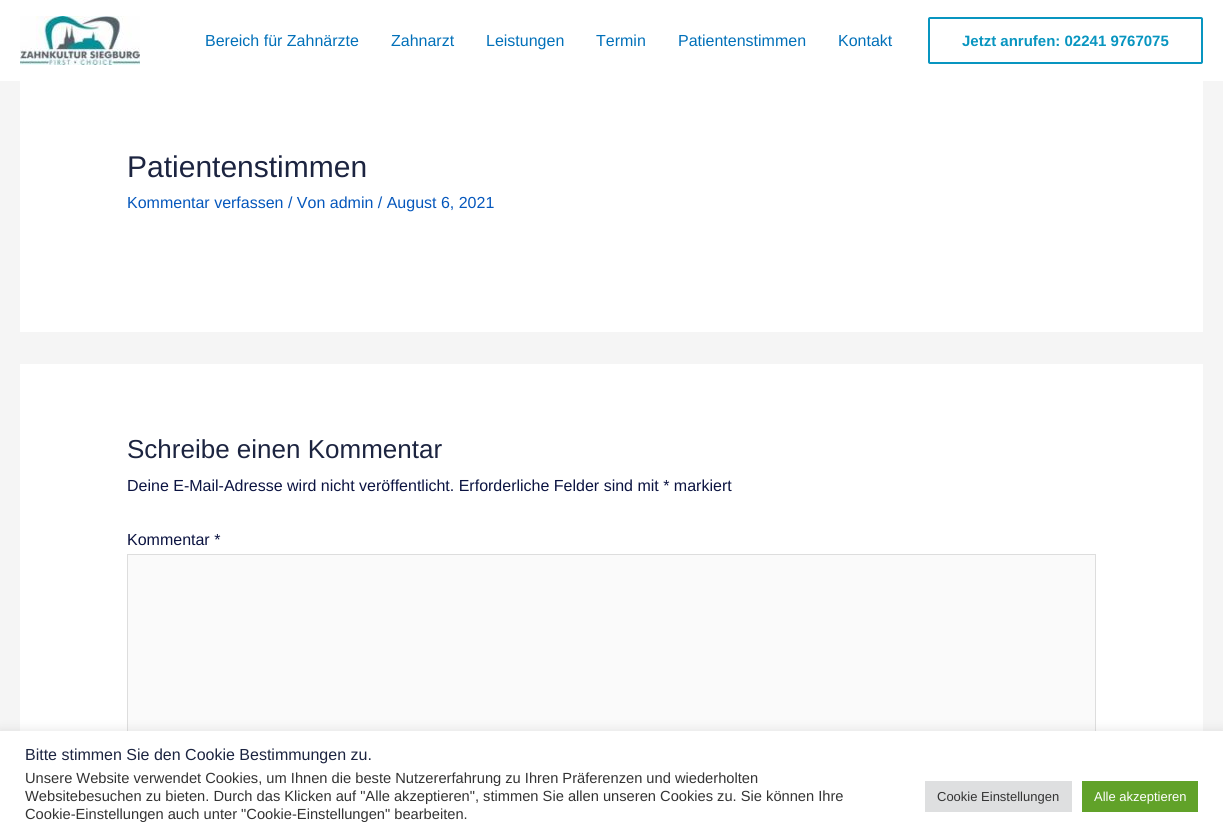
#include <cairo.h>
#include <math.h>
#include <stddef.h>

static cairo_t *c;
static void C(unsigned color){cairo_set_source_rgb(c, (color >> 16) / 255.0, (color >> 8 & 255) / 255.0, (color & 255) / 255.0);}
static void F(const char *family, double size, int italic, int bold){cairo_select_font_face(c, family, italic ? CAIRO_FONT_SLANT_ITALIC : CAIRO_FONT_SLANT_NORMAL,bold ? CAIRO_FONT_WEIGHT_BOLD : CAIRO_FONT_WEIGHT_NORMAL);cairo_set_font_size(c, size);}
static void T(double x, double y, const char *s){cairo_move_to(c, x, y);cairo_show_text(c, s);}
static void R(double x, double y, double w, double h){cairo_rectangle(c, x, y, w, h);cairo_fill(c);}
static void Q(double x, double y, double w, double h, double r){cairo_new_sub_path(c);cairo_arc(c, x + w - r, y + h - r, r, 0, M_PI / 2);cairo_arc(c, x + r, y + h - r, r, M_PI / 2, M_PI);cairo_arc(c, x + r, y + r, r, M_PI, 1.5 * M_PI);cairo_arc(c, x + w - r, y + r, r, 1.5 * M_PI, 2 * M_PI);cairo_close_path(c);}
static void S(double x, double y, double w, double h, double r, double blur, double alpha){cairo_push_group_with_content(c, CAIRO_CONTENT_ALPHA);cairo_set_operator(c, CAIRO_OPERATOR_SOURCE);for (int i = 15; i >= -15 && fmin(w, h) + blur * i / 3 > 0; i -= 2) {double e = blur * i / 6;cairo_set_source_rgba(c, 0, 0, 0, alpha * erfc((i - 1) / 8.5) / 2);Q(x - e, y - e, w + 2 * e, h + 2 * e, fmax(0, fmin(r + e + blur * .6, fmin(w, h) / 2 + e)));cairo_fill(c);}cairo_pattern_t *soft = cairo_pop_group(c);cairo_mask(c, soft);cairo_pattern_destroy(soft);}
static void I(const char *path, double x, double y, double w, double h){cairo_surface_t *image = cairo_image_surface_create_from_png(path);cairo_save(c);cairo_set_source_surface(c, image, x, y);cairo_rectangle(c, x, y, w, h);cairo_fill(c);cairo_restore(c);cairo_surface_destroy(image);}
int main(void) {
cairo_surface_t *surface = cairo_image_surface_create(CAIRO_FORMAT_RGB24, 1223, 837);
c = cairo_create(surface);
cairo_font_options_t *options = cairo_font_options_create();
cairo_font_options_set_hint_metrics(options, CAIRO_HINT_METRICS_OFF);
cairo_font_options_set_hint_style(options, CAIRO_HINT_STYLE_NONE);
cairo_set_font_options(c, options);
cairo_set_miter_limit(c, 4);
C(0xf5f5f5);
cairo_paint(c);
C(0xffffff);
R(0,0,1223,81);
I("1.png",20,16,120,49);
F("Liberation Sans",16,0,0);
C(0x0170b9);
T(205,46,"Bereich für Zahnärzte");
T(391,46,"Zahnarzt");
T(486,46,"Leistungen");
T(596,46,"Termin");
T(678,46,"Patientenstimmen");
T(838,46,"Kontakt");
Q(929,18,273,45,1);
C(0x0895c0);
cairo_stroke(c);
F("Liberation Sans",15,0,1);
T(962,46,"Jetzt anrufen: 02241 9767075");
C(0xffffff);
R(20,81,1183,251);
F("Liberation Sans",30,0,0);
C(0x1c2440);
T(127,177,"Patientenstimmen");
F("Liberation Sans",16,0,0);
C(0x0557bc);
T(127,208,"Kommentar verfassen / Von admin / August 6, 2021");
C(0xffffff);
R(20,364,1183,367);
F("Liberation Sans",26,0,0);
C(0x1c2440);
T(127,458,"Schreibe einen Kommentar");
F("Liberation Sans",16,0,0);
C(0x0b1341);
T(127,491,"Deine E-Mail-Adresse wird nicht veröffentlicht. Erforderliche Felder sind mit * markiert");
T(127,545,"Kommentar *");
C(0xfafafa);
R(128,555,967,176);
cairo_rectangle(c,127.5,554.5,968,263);
C(0xdddddd);
cairo_set_line_width(c,1);
cairo_stroke(c);
C(0xacabab);
S(0,730,1223,106,0,5,.3);
C(0xffffff);
R(0,731,1223,106);
C(0x1c2440);
T(25,760,"Bitte stimmen Sie den Cookie Bestimmungen zu.");
F("Liberation Sans",14.67,0,0);
C(0x333333);
T(25,783,"Unsere Website verwendet Cookies, um Ihnen die beste Nutzererfahrung zu Ihren Präferenzen und wiederholten");
T(25,801,"Websitebesuchen zu bieten. Durch das Klicken auf \"Alle akzeptieren\", stimmen Sie allen unseren Cookies zu. Sie können Ihre");
T(25,819,"Cookie-Einstellungen auch unter \"Cookie-Einstellungen\" bearbeiten.");
C(0xdedfe0);
R(925,781,147,31);
F("Liberation Sans",13,0,0);
C(0x333333);
T(937,801,"Cookie Einstellungen");
C(0x61a229);
R(1082,781,116,31);
C(0xffffff);
T(1094,801,"Alle akzeptieren");
cairo_surface_write_to_png(surface, "o.png");
cairo_font_options_destroy(options);
cairo_destroy(c);
cairo_surface_destroy(surface);
return 0;
}
